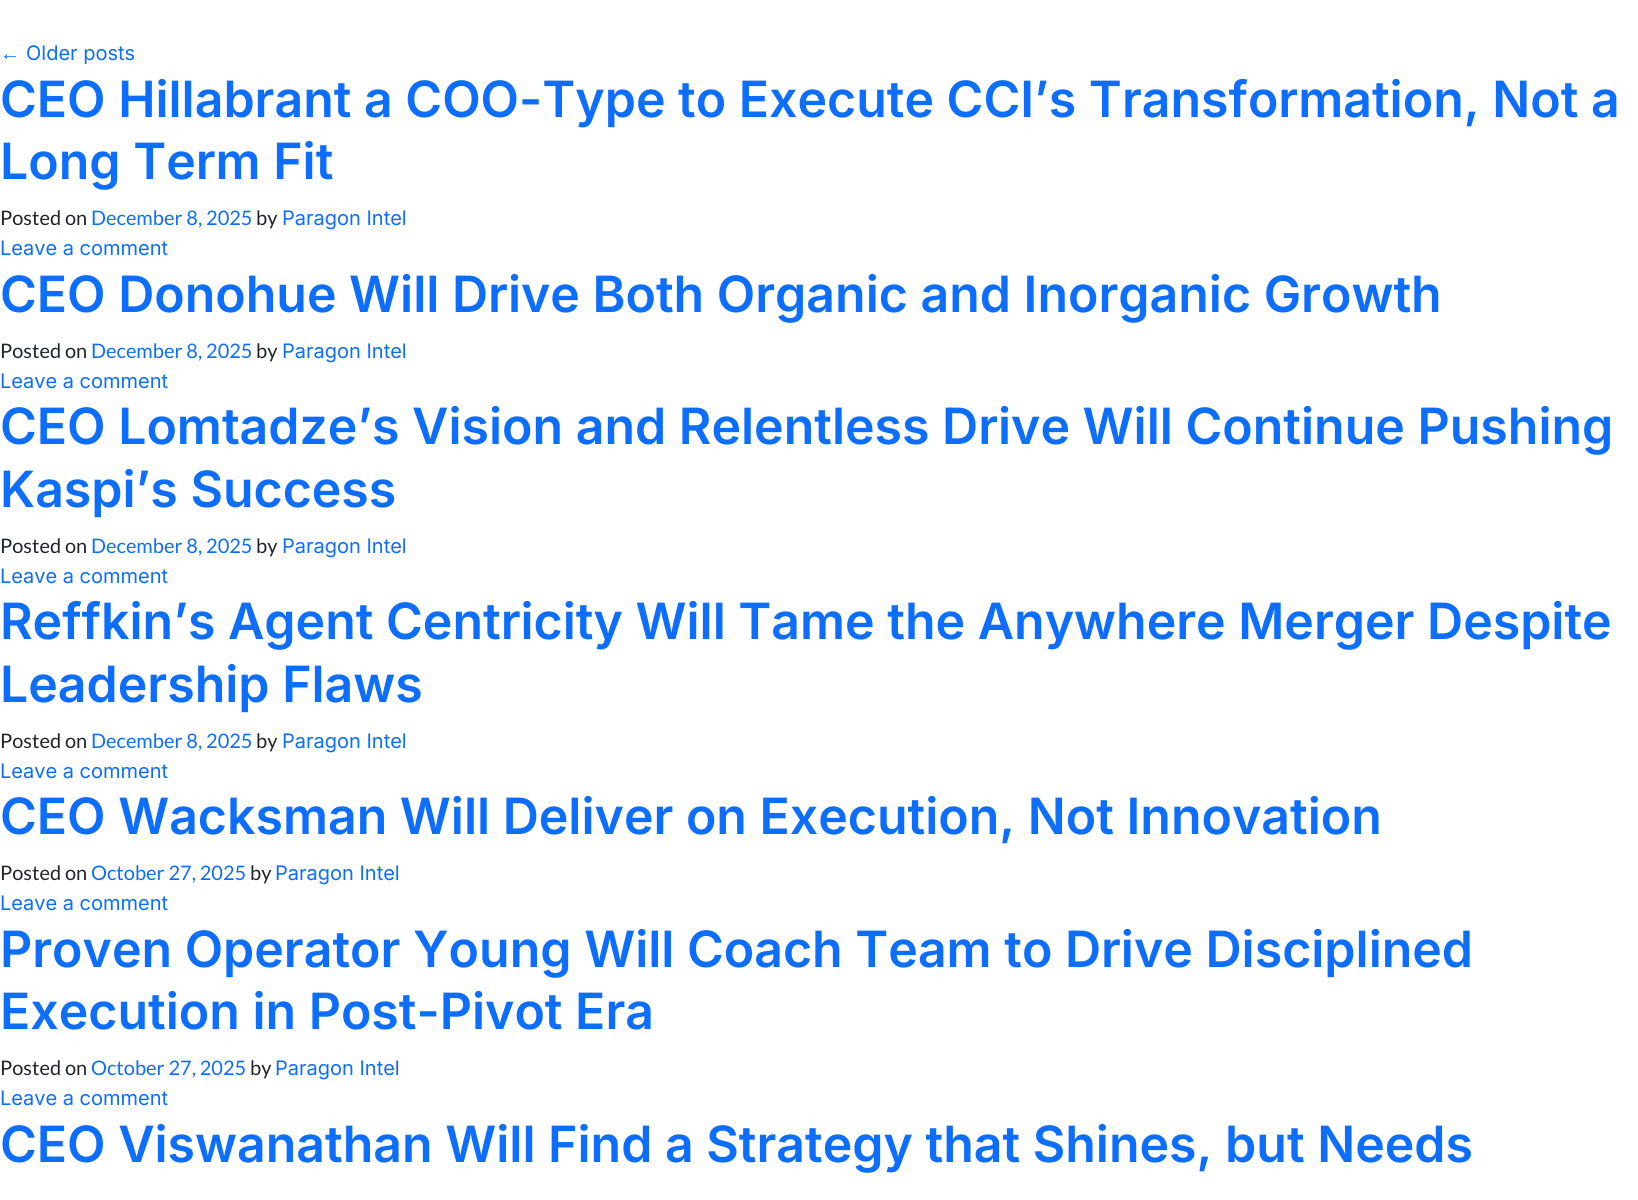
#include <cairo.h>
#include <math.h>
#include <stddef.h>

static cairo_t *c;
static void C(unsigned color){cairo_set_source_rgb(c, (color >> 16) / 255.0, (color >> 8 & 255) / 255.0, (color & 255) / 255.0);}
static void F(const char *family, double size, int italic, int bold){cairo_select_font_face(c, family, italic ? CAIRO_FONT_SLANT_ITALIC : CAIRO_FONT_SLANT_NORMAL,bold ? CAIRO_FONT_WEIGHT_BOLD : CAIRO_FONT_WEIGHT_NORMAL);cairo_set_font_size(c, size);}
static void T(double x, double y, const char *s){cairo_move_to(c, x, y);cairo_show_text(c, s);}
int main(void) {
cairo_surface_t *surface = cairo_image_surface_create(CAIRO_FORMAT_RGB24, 1638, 1200);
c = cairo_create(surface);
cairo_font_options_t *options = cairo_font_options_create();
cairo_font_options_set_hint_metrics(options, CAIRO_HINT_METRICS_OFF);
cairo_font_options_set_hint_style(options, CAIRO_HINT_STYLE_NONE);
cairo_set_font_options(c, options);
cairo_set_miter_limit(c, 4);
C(0xffffff);
cairo_paint(c);
F("Liberation Sans",20,0,0);
C(0x0d6efd);
T(0,60,"←");
F("Inter",20,0,0);
T(26,60,"Older posts");
F("Inter SemiBold",50,0,0);
T(0,117,"CEO Hillabrant a COO-Type to Execute CCI’s Transformation, Not a");
T(0,179,"Long Term Fit");
F("Lato",20,0,0);
C(0x212529);
T(0,225,"Posted on");
C(0x0d6efd);
T(91,225,"December 8, 2025");
C(0x212529);
T(256,225,"by");
F("Inter",20,0,0);
C(0x0d6efd);
T(282,225,"Paragon Intel");
T(0,255,"Leave a comment");
F("Inter SemiBold",50,0,0);
T(0,312,"CEO Donohue Will Drive Both Organic and Inorganic Growth");
F("Lato",20,0,0);
C(0x212529);
T(0,358,"Posted on");
C(0x0d6efd);
T(91,358,"December 8, 2025");
C(0x212529);
T(256,358,"by");
F("Inter",20,0,0);
C(0x0d6efd);
T(282,358,"Paragon Intel");
T(0,388,"Leave a comment");
F("Inter SemiBold",50,0,0);
T(0,444,"CEO Lomtadze’s Vision and Relentless Drive Will Continue Pushing");
T(0,507,"Kaspi’s Success");
F("Lato",20,0,0);
C(0x212529);
T(0,553,"Posted on");
C(0x0d6efd);
T(91,553,"December 8, 2025");
C(0x212529);
T(256,553,"by");
F("Inter",20,0,0);
C(0x0d6efd);
T(282,553,"Paragon Intel");
T(0,583,"Leave a comment");
F("Inter SemiBold",50,0,0);
T(0,639,"Reffkin’s Agent Centricity Will Tame the Anywhere Merger Despite");
T(0,702,"Leadership Flaws");
F("Lato",20,0,0);
C(0x212529);
T(0,748,"Posted on");
C(0x0d6efd);
T(91,748,"December 8, 2025");
C(0x212529);
T(256,748,"by");
F("Inter",20,0,0);
C(0x0d6efd);
T(282,748,"Paragon Intel");
T(0,778,"Leave a comment");
F("Inter SemiBold",50,0,0);
T(0,834,"CEO Wacksman Will Deliver on Execution, Not Innovation");
F("Lato",20,0,0);
C(0x212529);
T(0,880,"Posted on");
C(0x0d6efd);
T(91,880,"October 27, 2025");
C(0x212529);
T(250,880,"by");
F("Inter",20,0,0);
C(0x0d6efd);
T(275,880,"Paragon Intel");
T(0,910,"Leave a comment");
F("Inter SemiBold",50,0,0);
T(0,967,"Proven Operator Young Will Coach Team to Drive Disciplined");
T(0,1029,"Execution in Post-Pivot Era");
F("Lato",20,0,0);
C(0x212529);
T(0,1075,"Posted on");
C(0x0d6efd);
T(91,1075,"October 27, 2025");
C(0x212529);
T(250,1075,"by");
F("Inter",20,0,0);
C(0x0d6efd);
T(275,1075,"Paragon Intel");
T(0,1105,"Leave a comment");
F("Inter SemiBold",50,0,0);
T(0,1162,"CEO Viswanathan Will Find a Strategy that Shines, but Needs");
cairo_surface_write_to_png(surface, "o.png");
cairo_font_options_destroy(options);
cairo_destroy(c);
cairo_surface_destroy(surface);
return 0;
}
